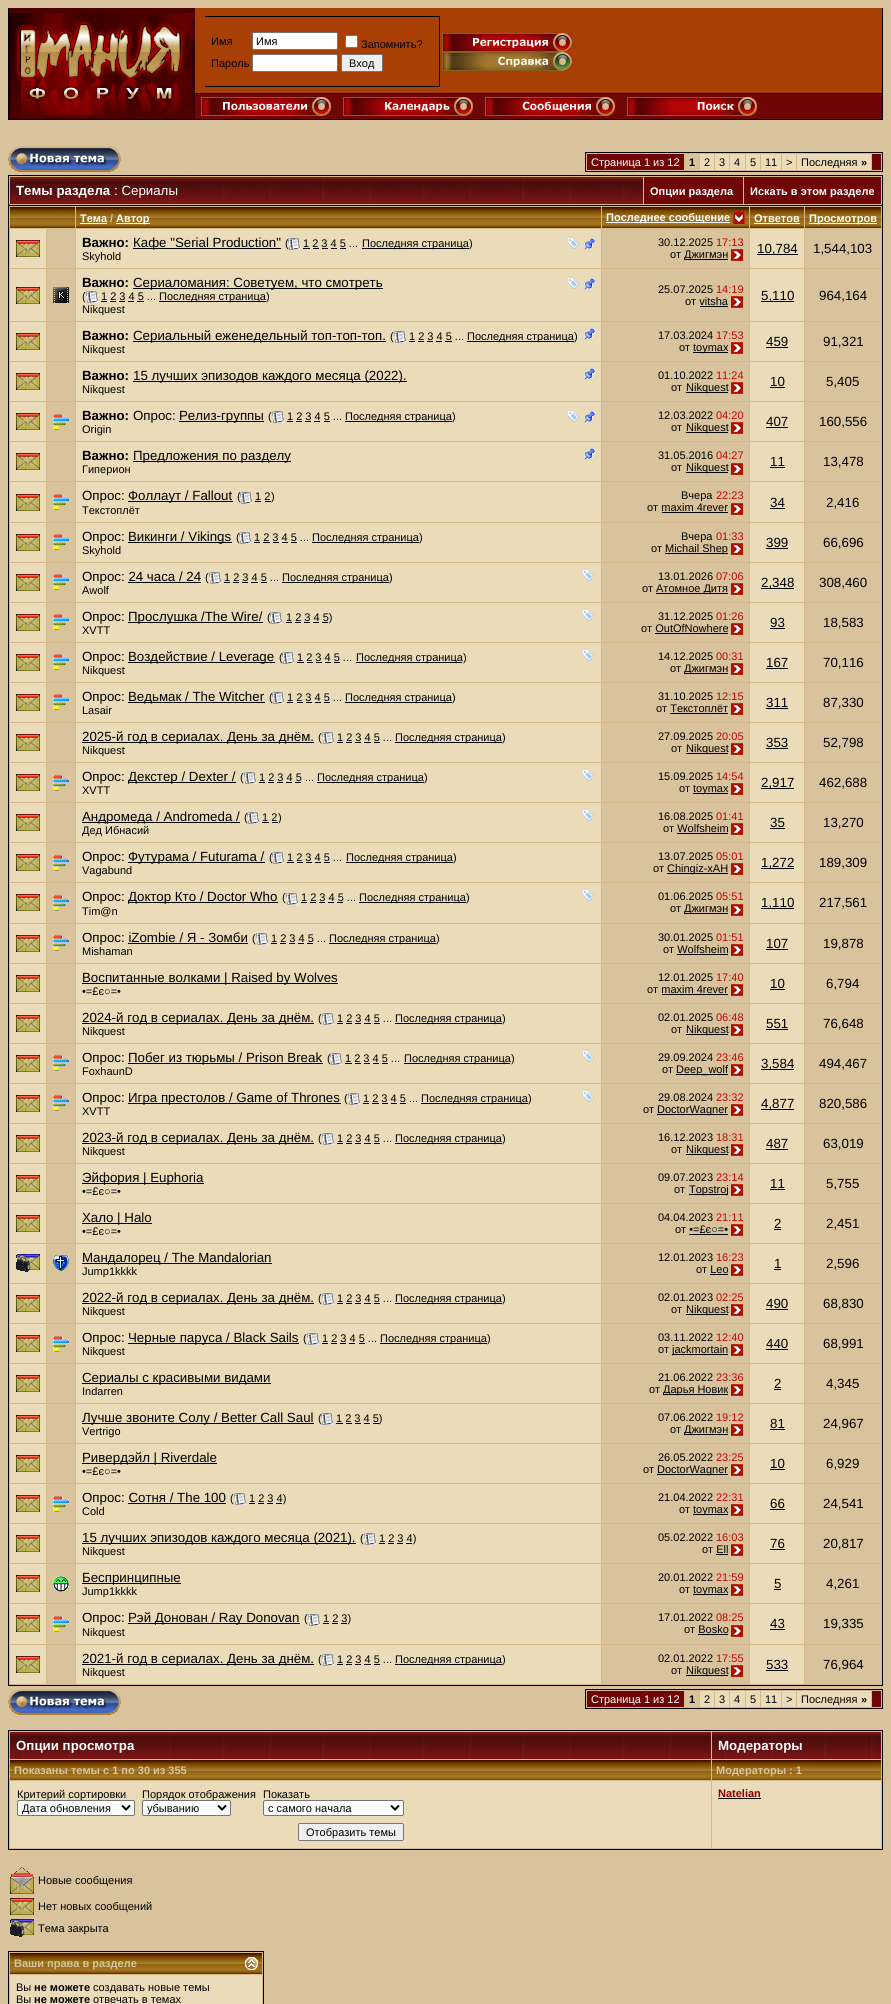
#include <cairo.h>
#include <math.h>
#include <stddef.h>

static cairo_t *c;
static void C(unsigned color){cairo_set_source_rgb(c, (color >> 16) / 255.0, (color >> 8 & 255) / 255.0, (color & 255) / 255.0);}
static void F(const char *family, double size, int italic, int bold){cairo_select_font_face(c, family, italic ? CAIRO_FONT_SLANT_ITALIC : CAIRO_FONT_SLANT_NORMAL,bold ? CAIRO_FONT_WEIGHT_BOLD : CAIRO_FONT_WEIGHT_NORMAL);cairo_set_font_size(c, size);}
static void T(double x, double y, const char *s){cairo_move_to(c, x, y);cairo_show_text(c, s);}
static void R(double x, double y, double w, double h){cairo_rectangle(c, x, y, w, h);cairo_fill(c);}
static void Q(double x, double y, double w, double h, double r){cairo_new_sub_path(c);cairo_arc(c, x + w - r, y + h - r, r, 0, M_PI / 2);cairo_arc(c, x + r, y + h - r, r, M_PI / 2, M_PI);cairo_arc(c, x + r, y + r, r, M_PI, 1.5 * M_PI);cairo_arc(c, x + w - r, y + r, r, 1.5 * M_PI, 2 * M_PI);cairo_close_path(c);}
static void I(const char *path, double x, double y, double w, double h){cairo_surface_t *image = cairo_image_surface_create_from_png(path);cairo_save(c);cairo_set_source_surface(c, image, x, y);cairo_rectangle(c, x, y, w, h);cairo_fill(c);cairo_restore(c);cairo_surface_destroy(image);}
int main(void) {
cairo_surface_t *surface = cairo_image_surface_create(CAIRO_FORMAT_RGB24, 891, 2004);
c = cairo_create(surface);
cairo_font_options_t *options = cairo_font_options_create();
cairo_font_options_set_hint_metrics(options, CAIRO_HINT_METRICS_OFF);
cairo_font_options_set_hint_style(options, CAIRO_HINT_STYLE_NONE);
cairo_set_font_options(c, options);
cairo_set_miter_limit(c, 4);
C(0xd9c39c);
cairo_paint(c);
C(0x000000);
R(882,8,1,112);
R(8,119,875,1);
R(8,8,1,112);
C(0x4b0000);
R(9,8,186,111);
I("1.png",9,13,186,102);
C(0xa83f05);
R(195,8,687,85);
C(0x000000);
R(205,16,235,1);
R(439,16,1,71);
R(205,86,235,1);
F("Liberation Sans",11,0,0);
T(211,45,"Имя");
C(0xffffff);
Q(252.5,32.5,85,17,1.5);
cairo_fill_preserve(c);
C(0x767676);
cairo_set_line_width(c,1);
cairo_stroke(c);
C(0x000000);
T(256,45,"Имя");
C(0xffffff);
Q(345.5,35.5,12,12,1.5);
cairo_fill_preserve(c);
C(0x767676);
cairo_stroke(c);
C(0x000000);
T(361,48,"Запомнить?");
T(211,67,"Пароль");
C(0xffffff);
Q(252.5,54.5,85,17,1.5);
cairo_fill_preserve(c);
C(0x767676);
cairo_stroke(c);
C(0xefefef);
Q(341.5,54.5,41,17,1.5);
cairo_fill_preserve(c);
C(0x767676);
cairo_stroke(c);
C(0x000000);
T(349,67,"Вход");
I("2.png",442,33,130,19);
I("3.png",442,52,130,19);
R(195,93,687,1);
C(0x700505);
R(195,94,687,25);
I("4.png",201,97,130,19);
I("5.png",343,97,130,19);
I("6.png",485,97,130,19);
I("7.png",627,97,130,19);
I("8.png",8,146,113,26);
C(0xd5b989);
cairo_rectangle(c,585.5,152.5,297,19);
cairo_fill_preserve(c);
C(0x000000);
cairo_stroke(c);
C(0x700505);
R(587,154,97,16);
C(0xffffff);
T(591,166,"Страница 1 из 12");
C(0xd9c39c);
R(685,154,14,16);
F("Liberation Sans",11,0,1);
C(0x000000);
T(689,166,"1");
C(0xeadcb9);
R(700,154,14,16);
F("Liberation Sans",11,0,0);
C(0x000000);
T(704,166,"2");
C(0xeadcb9);
R(715,154,14,16);
C(0x000000);
T(719,166,"3");
C(0xeadcb9);
R(730,154,15,16);
C(0x000000);
T(734,166,"4");
C(0xeadcb9);
R(746,154,14,16);
C(0x000000);
T(750,166,"5");
C(0xeadcb9);
R(761,154,20,16);
C(0x000000);
T(765,166,"11");
C(0xeadcb9);
R(782,154,14,16);
C(0x000000);
T(786,166,">");
C(0xeadcb9);
R(797,154,74,16);
C(0x000000);
T(801,166,"Последняя");
F("Liberation Sans",11,0,1);
T(861,166,"»");
C(0x700505);
R(872,154,9,16);
C(0xd5b989);
R(9,176,873,29);
C(0x000000);
R(8,175,875,1);
R(882,175,1,30);
R(8,175,1,30);
I("9.png",10,177,633,27);
F("Liberation Sans",13.3,0,1);
C(0xffffff);
T(16,195,"Темы раздела");
F("Liberation Sans",13.3,0,0);
T(114,195,": Сериалы");
C(0x700505);
R(644,177,99,27);
F("Liberation Sans",11,0,1);
C(0xffffff);
T(650,195,"Опции раздела");
C(0x700505);
R(744,177,137,27);
C(0xffffff);
T(750,195,"Искать в этом разделе");
C(0xd5b989);
cairo_rectangle(c,8.5,205.5,874,1480);
cairo_fill_preserve(c);
C(0x000000);
cairo_stroke(c);
I("10.png",10,207,65,21);
I("11.png",76,207,525,21);
C(0xffffff);
T(80,222,"Тема");
R(80,223,27,1);
C(0xd9c39c);
T(110,222,"/");
C(0xffffff);
R(116,223,34,1);
T(116,222,"Автор");
I("12.png",602,207,147,21);
R(606,222,124,1);
T(606,221,"Последнее сообщение");
I("13.png",733,212,12,12);
I("14.png",750,207,54,21);
T(754,222,"Ответов");
R(754,223,46,1);
I("15.png",805,207,76,21);
R(809,223,68,1);
T(809,222,"Просмотров");
C(0xeadcb9);
R(10,229,36,39);
I("16.png",16,240,24,17);
C(0xd9c39c);
R(47,229,28,39);
C(0xeadcb9);
R(76,229,525,39);
F("Liberation Sans",13.3,0,1);
C(0x000000);
T(82,247,"Важно:");
R(133,248,148,1);
F("Liberation Sans",13.3,0,0);
T(133,247,"Кафе \"Serial Production\"");
F("Liberation Sans",11,0,0);
T(285,247,"(");
I("17.png",288,238,12,12);
T(303,247,"1 2 3 4 5 ...");
R(303,248,7,1);
R(313,248,6,1);
R(322,248,6,1);
R(331,248,6,1);
R(340,248,6,1);
R(362,248,107,1);
T(362,247,"Последняя страница)");
I("18.png",567,237,12,12);
I("19.png",584,238,11,12);
T(82,260,"Skyhold");
C(0xd9c39c);
R(602,229,147,39);
C(0x000000);
T(658,246,"30.12.2025");
C(0xc00505);
T(716,246,"17:13");
C(0x000000);
T(670,258,"от");
R(684,259,44,1);
T(684,258,"Джигмэн");
I("20.png",731,249,12,12);
C(0xeadcb9);
R(750,229,54,39);
C(0x000000);
R(757,254,41,1);
F("Liberation Sans",13.3,0,0);
T(757,253,"10,784");
C(0xd9c39c);
R(805,229,76,39);
C(0x000000);
T(813,253,"1,544,103");
C(0xeadcb9);
R(10,269,36,52);
I("16.png",16,287,24,17);
C(0xd9c39c);
R(47,269,28,52);
I("21.png",53,287,16,16);
C(0xeadcb9);
R(76,269,525,52);
F("Liberation Sans",13.3,0,1);
C(0x000000);
T(82,287,"Важно:");
R(133,288,250,1);
F("Liberation Sans",13.3,0,0);
T(133,287,"Сериаломания: Советуем, что смотреть");
I("18.png",567,277,12,12);
I("19.png",584,278,11,12);
F("Liberation Sans",11,0,0);
T(82,300,"(");
I("22.png",86,291,12,12);
T(101,300,"1 2 3 4 5 ...");
R(101,301,6,1);
R(110,301,6,1);
R(119,301,6,1);
R(128,301,6,1);
R(137,301,7,1);
R(159,301,107,1);
T(159,300,"Последняя страница)");
T(82,313,"Nikquest");
C(0xd9c39c);
R(602,269,147,52);
C(0x000000);
T(658,293,"25.07.2025");
C(0xc00505);
T(716,293,"14:19");
C(0x000000);
T(685,305,"от vitsha");
I("20.png",731,296,12,12);
R(700,306,28,1);
C(0xeadcb9);
R(750,269,54,52);
C(0x000000);
R(761,301,33,1);
F("Liberation Sans",13.3,0,0);
T(761,300,"5,110");
C(0xd9c39c);
R(805,269,76,52);
C(0x000000);
T(819,300,"964,164");
C(0xeadcb9);
R(10,322,36,39);
I("16.png",16,333,24,17);
C(0xd9c39c);
R(47,322,28,39);
C(0xeadcb9);
R(76,322,525,39);
F("Liberation Sans",13.3,0,1);
C(0x000000);
T(82,340,"Важно:");
R(133,341,253,1);
F("Liberation Sans",13.3,0,0);
T(133,340,"Сериальный еженедельный топ-топ-топ.");
F("Liberation Sans",11,0,0);
T(390,340,"(");
I("22.png",394,331,12,12);
T(409,340,"1 2 3 4 5 ...");
R(409,341,6,1);
R(418,341,6,1);
R(427,341,6,1);
R(436,341,6,1);
R(445,341,7,1);
R(467,341,107,1);
T(467,340,"Последняя страница)");
I("19.png",584,328,11,12);
T(82,353,"Nikquest");
C(0xd9c39c);
R(602,322,147,39);
C(0x000000);
T(658,339,"17.03.2024");
C(0xc00505);
T(716,339,"17:53");
C(0x000000);
T(679,351,"от");
R(693,352,35,1);
T(693,351,"toymax");
I("20.png",731,342,12,12);
C(0xeadcb9);
R(750,322,54,39);
F("Liberation Sans",13.3,0,0);
C(0x000000);
T(766,346,"459");
R(766,347,22,1);
C(0xd9c39c);
R(805,322,76,39);
C(0x000000);
T(823,346,"91,321");
C(0xeadcb9);
R(10,362,36,39);
I("16.png",16,373,24,17);
C(0xd9c39c);
R(47,362,28,39);
C(0xeadcb9);
R(76,362,525,39);
F("Liberation Sans",13.3,0,1);
C(0x000000);
T(82,380,"Важно:");
R(133,381,274,1);
F("Liberation Sans",13.3,0,0);
T(133,380,"15 лучших эпизодов каждого месяца (2022).");
I("19.png",584,368,11,12);
F("Liberation Sans",11,0,0);
T(82,393,"Nikquest");
C(0xd9c39c);
R(602,362,147,39);
C(0x000000);
T(658,379,"01.10.2022");
C(0xc00505);
T(716,379,"11:24");
C(0x000000);
T(671,391,"от");
R(686,392,42,1);
T(686,391,"Nikquest");
I("20.png",731,382,12,12);
C(0xeadcb9);
R(750,362,54,39);
F("Liberation Sans",13.3,0,0);
C(0x000000);
T(770,386,"10");
R(770,387,15,1);
C(0xd9c39c);
R(805,362,76,39);
C(0x000000);
T(826,386,"5,405");
C(0xeadcb9);
R(10,402,36,39);
I("16.png",16,413,24,17);
C(0xd9c39c);
R(47,402,28,39);
I("23.png",53,414,16,16);
C(0xeadcb9);
R(76,402,525,39);
F("Liberation Sans",13.3,0,1);
C(0x000000);
T(82,420,"Важно:");
F("Liberation Sans",13.3,0,0);
T(133,420,"Опрос:");
R(179,421,85,1);
T(179,420,"Релиз-группы");
F("Liberation Sans",11,0,0);
T(268,420,"(");
I("22.png",272,411,12,12);
T(287,420,"1 2 3 4 5 ...");
R(287,421,6,1);
R(296,421,6,1);
R(305,421,6,1);
R(314,421,6,1);
R(324,421,6,1);
R(345,421,107,1);
T(345,420,"Последняя страница)");
I("18.png",567,410,12,12);
I("19.png",584,411,11,12);
T(82,433,"Origin");
C(0xd9c39c);
R(602,402,147,39);
C(0x000000);
T(658,419,"12.03.2022");
C(0xc00505);
T(716,419,"04:20");
C(0x000000);
T(671,431,"от");
R(686,432,42,1);
T(686,431,"Nikquest");
I("20.png",731,422,12,12);
C(0xeadcb9);
R(750,402,54,39);
F("Liberation Sans",13.3,0,0);
C(0x000000);
T(766,426,"407");
R(766,427,22,1);
C(0xd9c39c);
R(805,402,76,39);
C(0x000000);
T(819,426,"160,556");
C(0xeadcb9);
R(10,442,36,39);
I("16.png",16,453,24,17);
C(0xd9c39c);
R(47,442,28,39);
C(0xeadcb9);
R(76,442,525,39);
F("Liberation Sans",13.3,0,1);
C(0x000000);
T(82,460,"Важно:");
R(133,461,158,1);
F("Liberation Sans",13.3,0,0);
T(133,460,"Предложения по разделу");
I("19.png",584,448,11,12);
F("Liberation Sans",11,0,0);
T(82,473,"Гиперион");
C(0xd9c39c);
R(602,442,147,39);
C(0x000000);
T(658,459,"31.05.2016");
C(0xc00505);
T(716,459,"04:27");
C(0x000000);
T(671,471,"от");
R(686,472,42,1);
T(686,471,"Nikquest");
I("20.png",731,463,12,12);
C(0xeadcb9);
R(750,442,54,39);
F("Liberation Sans",13.3,0,0);
C(0x000000);
T(770,466,"11");
R(770,467,15,1);
C(0xd9c39c);
R(805,442,76,39);
C(0x000000);
T(823,466,"13,478");
C(0xeadcb9);
R(10,482,36,40);
I("16.png",16,494,24,17);
C(0xd9c39c);
R(47,482,28,40);
I("23.png",53,494,16,16);
C(0xeadcb9);
R(76,482,525,40);
C(0x000000);
T(82,500,"Опрос:");
R(128,501,105,1);
T(128,500,"Фоллаут / Fallout");
F("Liberation Sans",11,0,0);
T(237,500,"(");
I("24.png",240,492,12,12);
T(255,500,"1 2");
R(255,501,6,1);
R(265,501,6,1);
T(271,500,")");
T(82,514,"Текстоплёт");
C(0xd9c39c);
R(602,482,147,40);
C(0x000000);
T(681,499,"Вчера");
C(0xc00505);
T(716,499,"22:23");
C(0x000000);
T(647,511,"от maxim 4rever");
I("20.png",731,503,12,12);
R(662,512,66,1);
C(0xeadcb9);
R(750,482,54,40);
F("Liberation Sans",13.3,0,0);
C(0x000000);
T(770,507,"34");
R(770,508,15,1);
C(0xd9c39c);
R(805,482,76,40);
C(0x000000);
T(826,507,"2,416");
C(0xeadcb9);
R(10,523,36,39);
I("16.png",16,534,24,17);
C(0xd9c39c);
R(47,523,28,39);
I("23.png",53,534,16,16);
C(0xeadcb9);
R(76,523,525,39);
C(0x000000);
T(82,541,"Опрос:");
R(128,542,104,1);
T(128,541,"Викинги / Vikings");
F("Liberation Sans",11,0,0);
T(236,541,"(");
I("25.png",239,532,12,12);
T(254,541,"1 2 3 4 5 ...");
R(254,542,6,1);
R(263,542,7,1);
R(273,542,6,1);
R(282,542,6,1);
R(291,542,6,1);
R(312,542,107,1);
T(312,541,"Последняя страница)");
T(82,554,"Skyhold");
C(0xd9c39c);
R(602,523,147,39);
C(0x000000);
T(681,540,"Вчера");
C(0xc00505);
T(716,540,"01:33");
C(0x000000);
T(651,552,"от");
R(665,553,63,1);
T(665,552,"Michail Shep");
I("20.png",731,543,12,12);
C(0xeadcb9);
R(750,523,54,39);
F("Liberation Sans",13.3,0,0);
C(0x000000);
T(766,547,"399");
R(766,548,22,1);
C(0xd9c39c);
R(805,523,76,39);
C(0x000000);
T(823,547,"66,696");
C(0xeadcb9);
R(10,563,36,39);
I("16.png",16,574,24,17);
C(0xd9c39c);
R(47,563,28,39);
I("23.png",53,574,16,16);
C(0xeadcb9);
R(76,563,525,39);
C(0x000000);
T(82,581,"Опрос: 24 часа / 24");
F("Liberation Sans",11,0,0);
T(205,581,"(");
I("22.png",209,572,12,12);
T(224,581,"1 2 3 4 5 ...");
R(224,582,6,1);
R(233,582,6,1);
R(242,582,6,1);
R(251,582,7,1);
R(261,582,6,1);
R(282,582,107,1);
T(282,581,"Последняя страница)");
I("18.png",582,569,12,12);
R(128,582,73,1);
T(82,594,"Awolf");
C(0xd9c39c);
R(602,563,147,39);
C(0x000000);
T(658,580,"13.01.2026");
C(0xc00505);
T(716,580,"07:06");
C(0x000000);
T(642,592,"от");
R(656,593,72,1);
T(656,592,"Атомное Дитя");
I("20.png",731,583,12,12);
C(0xeadcb9);
R(750,563,54,39);
C(0x000000);
R(761,588,33,1);
F("Liberation Sans",13.3,0,0);
T(761,587,"2,348");
C(0xd9c39c);
R(805,563,76,39);
C(0x000000);
T(819,587,"308,460");
C(0xeadcb9);
R(10,603,36,39);
I("16.png",16,614,24,17);
C(0xd9c39c);
R(47,603,28,39);
I("23.png",53,614,16,16);
C(0xeadcb9);
R(76,603,525,39);
C(0x000000);
T(82,621,"Опрос:");
R(128,622,135,1);
T(128,621,"Прослушка /The Wire/");
F("Liberation Sans",11,0,0);
T(267,621,"(");
I("26.png",270,612,12,12);
R(286,622,6,1);
T(286,621,"1 2 3 4 5)");
R(295,622,6,1);
R(304,622,6,1);
R(313,622,6,1);
R(322,622,6,1);
I("18.png",582,609,12,12);
T(82,634,"XVTT");
C(0xd9c39c);
R(602,603,147,39);
C(0x000000);
T(658,620,"31.12.2025");
C(0xc00505);
T(716,620,"01:26");
C(0x000000);
T(641,632,"от OutOfNowhere");
I("20.png",731,623,12,12);
R(655,633,73,1);
C(0xeadcb9);
R(750,603,54,39);
F("Liberation Sans",13.3,0,0);
C(0x000000);
T(770,627,"93");
R(770,628,15,1);
C(0xd9c39c);
R(805,603,76,39);
C(0x000000);
T(823,627,"18,583");
C(0xeadcb9);
R(10,643,36,39);
I("16.png",16,654,24,17);
C(0xd9c39c);
R(47,643,28,39);
I("23.png",53,654,16,16);
C(0xeadcb9);
R(76,643,525,39);
C(0x000000);
T(82,661,"Опрос:");
R(128,662,147,1);
T(128,661,"Воздействие / Leverage");
F("Liberation Sans",11,0,0);
T(279,661,"(");
I("27.png",282,652,12,12);
T(297,661,"1 2 3 4 5 ...");
R(297,662,7,1);
R(307,662,6,1);
R(316,662,6,1);
R(325,662,6,1);
R(334,662,6,1);
R(356,662,106,1);
T(356,661,"Последняя страница)");
I("18.png",582,649,12,12);
T(82,674,"Nikquest");
C(0xd9c39c);
R(602,643,147,39);
C(0x000000);
T(658,660,"14.12.2025");
C(0xc00505);
T(716,660,"00:31");
C(0x000000);
T(670,672,"от");
R(684,673,44,1);
T(684,672,"Джигмэн");
I("20.png",731,663,12,12);
C(0xeadcb9);
R(750,643,54,39);
F("Liberation Sans",13.3,0,0);
C(0x000000);
T(766,667,"167");
R(766,668,22,1);
C(0xd9c39c);
R(805,643,76,39);
C(0x000000);
T(823,667,"70,116");
C(0xeadcb9);
R(10,683,36,39);
I("16.png",16,694,24,17);
C(0xd9c39c);
R(47,683,28,39);
I("23.png",53,694,16,16);
C(0xeadcb9);
R(76,683,525,39);
C(0x000000);
T(82,701,"Опрос:");
R(128,702,137,1);
T(128,701,"Ведьмак / The Witcher");
F("Liberation Sans",11,0,0);
T(269,701,"(");
I("28.png",272,692,12,12);
T(287,701,"1 2 3 4 5 ...");
R(287,702,6,1);
R(297,702,6,1);
R(306,702,6,1);
R(315,702,6,1);
R(324,702,6,1);
R(345,702,107,1);
T(345,701,"Последняя страница)");
T(82,714,"Lasair");
C(0xd9c39c);
R(602,683,147,39);
C(0x000000);
T(658,700,"31.10.2025");
C(0xc00505);
T(716,700,"12:15");
C(0x000000);
T(656,712,"от Текстоплёт");
I("20.png",731,703,12,12);
R(670,713,58,1);
C(0xeadcb9);
R(750,683,54,39);
F("Liberation Sans",13.3,0,0);
C(0x000000);
T(766,707,"311");
R(766,708,22,1);
C(0xd9c39c);
R(805,683,76,39);
C(0x000000);
T(823,707,"87,330");
C(0xeadcb9);
R(10,723,36,39);
I("16.png",16,734,24,17);
C(0xd9c39c);
R(47,723,28,39);
C(0xeadcb9);
R(76,723,525,39);
C(0x000000);
R(82,742,232,1);
T(82,741,"2025-й год в сериалах. День за днём.");
F("Liberation Sans",11,0,0);
T(318,741,"(");
I("22.png",322,732,12,12);
T(337,741,"1 2 3 4 5 ...");
R(337,742,6,1);
R(346,742,6,1);
R(355,742,6,1);
R(364,742,7,1);
R(374,742,6,1);
R(395,742,107,1);
T(395,741,"Последняя страница)");
T(82,754,"Nikquest");
C(0xd9c39c);
R(602,723,147,39);
C(0x000000);
T(658,740,"27.09.2025");
C(0xc00505);
T(716,740,"20:05");
C(0x000000);
T(671,752,"от");
R(686,753,42,1);
T(686,752,"Nikquest");
I("20.png",731,743,12,12);
C(0xeadcb9);
R(750,723,54,39);
F("Liberation Sans",13.3,0,0);
C(0x000000);
T(766,747,"353");
R(766,748,22,1);
C(0xd9c39c);
R(805,723,76,39);
C(0x000000);
T(823,747,"52,798");
C(0xeadcb9);
R(10,763,36,39);
I("16.png",16,774,24,17);
C(0xd9c39c);
R(47,763,28,39);
I("23.png",53,775,16,16);
C(0xeadcb9);
R(76,763,525,39);
C(0x000000);
T(82,781,"Опрос:");
R(128,782,108,1);
T(128,781,"Декстер / Dexter /");
F("Liberation Sans",11,0,0);
T(240,781,"(");
I("22.png",244,772,12,12);
T(259,781,"1 2 3 4 5 ...");
R(259,782,6,1);
R(268,782,6,1);
R(277,782,6,1);
R(286,782,6,1);
R(295,782,6,1);
R(317,782,107,1);
T(317,781,"Последняя страница)");
I("18.png",582,769,12,12);
T(82,794,"XVTT");
C(0xd9c39c);
R(602,763,147,39);
C(0x000000);
T(658,780,"15.09.2025");
C(0xc00505);
T(716,780,"14:54");
C(0x000000);
T(679,792,"от");
R(693,793,35,1);
T(693,792,"toymax");
I("20.png",731,783,12,12);
C(0xeadcb9);
R(750,763,54,39);
C(0x000000);
R(761,788,33,1);
F("Liberation Sans",13.3,0,0);
T(761,787,"2,917");
C(0xd9c39c);
R(805,763,76,39);
C(0x000000);
T(819,787,"462,688");
C(0xeadcb9);
R(10,803,36,39);
I("16.png",16,814,24,17);
C(0xd9c39c);
R(47,803,28,39);
C(0xeadcb9);
R(76,803,525,39);
C(0x000000);
R(82,822,158,1);
T(82,821,"Андромеда / Andromeda /");
F("Liberation Sans",11,0,0);
T(244,821,"(");
I("17.png",247,812,12,12);
T(262,821,"1 2");
R(262,822,7,1);
R(272,822,6,1);
T(278,821,")");
I("18.png",582,809,12,12);
T(82,834,"Дед Ибнасий");
C(0xd9c39c);
R(602,803,147,39);
C(0x000000);
T(658,820,"16.08.2025");
C(0xc00505);
T(716,820,"01:41");
C(0x000000);
T(663,832,"от Wolfsheim");
I("20.png",731,823,12,12);
R(677,833,51,1);
C(0xeadcb9);
R(750,803,54,39);
F("Liberation Sans",13.3,0,0);
C(0x000000);
T(770,827,"35");
R(770,828,15,1);
C(0xd9c39c);
R(805,803,76,39);
C(0x000000);
T(823,827,"13,270");
C(0xeadcb9);
R(10,843,36,39);
I("16.png",16,854,24,17);
C(0xd9c39c);
R(47,843,28,39);
I("23.png",53,855,16,16);
C(0xeadcb9);
R(76,843,525,39);
C(0x000000);
T(82,861,"Опрос:");
R(128,862,137,1);
T(128,861,"Футурама / Futurama /");
F("Liberation Sans",11,0,0);
T(269,861,"(");
I("29.png",272,852,12,12);
T(287,861,"1 2 3 4 5 ...");
R(287,862,7,1);
R(297,862,6,1);
R(306,862,6,1);
R(315,862,6,1);
R(324,862,6,1);
R(346,862,107,1);
T(346,861,"Последняя страница)");
T(82,874,"Vagabund");
C(0xd9c39c);
R(602,843,147,39);
C(0x000000);
T(658,860,"13.07.2025");
C(0xc00505);
T(716,860,"05:01");
C(0x000000);
T(653,872,"от");
R(667,873,61,1);
T(667,872,"Chingiz-xAH");
I("20.png",731,863,12,12);
C(0xeadcb9);
R(750,843,54,39);
C(0x000000);
R(761,868,33,1);
F("Liberation Sans",13.3,0,0);
T(761,867,"1,272");
C(0xd9c39c);
R(805,843,76,39);
C(0x000000);
T(819,867,"189,309");
C(0xeadcb9);
R(10,883,36,40);
I("16.png",16,894,24,17);
C(0xd9c39c);
R(47,883,28,40);
I("23.png",53,895,16,16);
C(0xeadcb9);
R(76,883,525,40);
C(0x000000);
T(82,901,"Опрос:");
R(128,902,150,1);
T(128,901,"Доктор Кто / Doctor Who");
F("Liberation Sans",11,0,0);
T(282,901,"(");
I("22.png",286,893,12,12);
T(301,901,"1 2 3 4 5 ...");
R(301,902,6,1);
R(310,902,6,1);
R(319,902,6,1);
R(328,902,6,1);
R(337,902,6,1);
R(359,902,107,1);
T(359,901,"Последняя страница)");
I("18.png",582,889,12,12);
T(82,915,"Tim@n");
C(0xd9c39c);
R(602,883,147,40);
C(0x000000);
T(658,900,"01.06.2025");
C(0xc00505);
T(716,900,"05:51");
C(0x000000);
T(670,912,"от");
R(684,913,44,1);
T(684,912,"Джигмэн");
I("20.png",731,904,12,12);
C(0xeadcb9);
R(750,883,54,40);
C(0x000000);
R(761,908,33,1);
F("Liberation Sans",13.3,0,0);
T(761,907,"1,110");
C(0xd9c39c);
R(805,883,76,40);
C(0x000000);
T(819,907,"217,561");
C(0xeadcb9);
R(10,924,36,39);
I("16.png",16,935,24,17);
C(0xd9c39c);
R(47,924,28,39);
I("23.png",53,935,16,16);
C(0xeadcb9);
R(76,924,525,39);
C(0x000000);
T(82,942,"Опрос: iZombie / Я - Зомби");
F("Liberation Sans",11,0,0);
T(252,942,"(");
I("22.png",256,933,12,12);
T(271,942,"1 2 3 4 5 ...");
R(271,943,6,1);
R(280,943,6,1);
R(289,943,6,1);
R(298,943,6,1);
R(307,943,6,1);
R(329,943,107,1);
T(329,942,"Последняя страница)");
R(128,943,120,1);
T(82,955,"Mishaman");
C(0xd9c39c);
R(602,924,147,39);
C(0x000000);
T(658,941,"30.01.2025");
C(0xc00505);
T(716,941,"01:51");
C(0x000000);
T(663,953,"от Wolfsheim");
I("20.png",731,944,12,12);
R(677,954,51,1);
C(0xeadcb9);
R(750,924,54,39);
F("Liberation Sans",13.3,0,0);
C(0x000000);
T(766,948,"107");
R(766,949,22,1);
C(0xd9c39c);
R(805,924,76,39);
C(0x000000);
T(823,948,"19,878");
C(0xeadcb9);
R(10,964,36,39);
I("16.png",16,975,24,17);
C(0xd9c39c);
R(47,964,28,39);
C(0xeadcb9);
R(76,964,525,39);
C(0x000000);
R(82,983,256,1);
T(82,982,"Воспитанные волками | Raised by Wolves");
F("Liberation Sans",11,0,0);
T(82,995,"•=£є○=•");
C(0xd9c39c);
R(602,964,147,39);
C(0x000000);
T(658,981,"12.01.2025");
C(0xc00505);
T(716,981,"17:40");
C(0x000000);
T(647,993,"от maxim 4rever");
I("20.png",731,984,12,12);
R(662,994,66,1);
C(0xeadcb9);
R(750,964,54,39);
F("Liberation Sans",13.3,0,0);
C(0x000000);
T(770,988,"10");
R(770,989,15,1);
C(0xd9c39c);
R(805,964,76,39);
C(0x000000);
T(826,988,"6,794");
C(0xeadcb9);
R(10,1004,36,39);
I("16.png",16,1015,24,17);
C(0xd9c39c);
R(47,1004,28,39);
C(0xeadcb9);
R(76,1004,525,39);
C(0x000000);
R(82,1023,232,1);
T(82,1022,"2024-й год в сериалах. День за днём.");
F("Liberation Sans",11,0,0);
T(318,1022,"(");
I("22.png",322,1013,12,12);
T(337,1022,"1 2 3 4 5 ...");
R(337,1023,6,1);
R(346,1023,6,1);
R(355,1023,6,1);
R(364,1023,7,1);
R(374,1023,6,1);
R(395,1023,107,1);
T(395,1022,"Последняя страница)");
T(82,1035,"Nikquest");
C(0xd9c39c);
R(602,1004,147,39);
C(0x000000);
T(658,1021,"02.01.2025");
C(0xc00505);
T(716,1021,"06:48");
C(0x000000);
T(671,1033,"от");
R(686,1034,42,1);
T(686,1033,"Nikquest");
I("20.png",731,1024,12,12);
C(0xeadcb9);
R(750,1004,54,39);
F("Liberation Sans",13.3,0,0);
C(0x000000);
T(766,1028,"551");
R(766,1029,22,1);
C(0xd9c39c);
R(805,1004,76,39);
C(0x000000);
T(823,1028,"76,648");
C(0xeadcb9);
R(10,1044,36,39);
I("16.png",16,1055,24,17);
C(0xd9c39c);
R(47,1044,28,39);
I("23.png",53,1055,16,16);
C(0xeadcb9);
R(76,1044,525,39);
C(0x000000);
T(82,1062,"Опрос:");
R(128,1063,195,1);
T(128,1062,"Побег из тюрьмы / Prison Break");
F("Liberation Sans",11,0,0);
T(327,1062,"(");
I("30.png",330,1053,12,12);
T(345,1062,"1 2 3 4 5 ...");
R(345,1063,7,1);
R(355,1063,6,1);
R(364,1063,6,1);
R(373,1063,6,1);
R(382,1063,6,1);
R(404,1063,106,1);
T(404,1062,"Последняя страница)");
I("18.png",582,1050,12,12);
T(82,1075,"FoxhaunD");
C(0xd9c39c);
R(602,1044,147,39);
C(0x000000);
T(658,1061,"29.09.2024");
C(0xc00505);
T(716,1061,"23:46");
C(0x000000);
T(662,1073,"от");
R(676,1074,52,1);
T(676,1073,"Deep_wolf");
I("20.png",731,1064,12,12);
C(0xeadcb9);
R(750,1044,54,39);
C(0x000000);
R(761,1069,33,1);
F("Liberation Sans",13.3,0,0);
T(761,1068,"3,584");
C(0xd9c39c);
R(805,1044,76,39);
C(0x000000);
T(819,1068,"494,467");
C(0xeadcb9);
R(10,1084,36,39);
I("16.png",16,1095,24,17);
C(0xd9c39c);
R(47,1084,28,39);
I("23.png",53,1095,16,16);
C(0xeadcb9);
R(76,1084,525,39);
C(0x000000);
T(82,1102,"Опрос:");
R(128,1103,213,1);
T(128,1102,"Игра престолов / Game of Thrones");
F("Liberation Sans",11,0,0);
T(344,1102,"(");
I("31.png",348,1093,12,12);
T(363,1102,"1 2 3 4 5 ...");
R(363,1103,6,1);
R(372,1103,7,1);
R(382,1103,6,1);
R(391,1103,6,1);
R(400,1103,6,1);
R(421,1103,107,1);
T(421,1102,"Последняя страница)");
I("18.png",582,1090,12,12);
T(82,1115,"XVTT");
C(0xd9c39c);
R(602,1084,147,39);
C(0x000000);
T(658,1101,"29.08.2024");
C(0xc00505);
T(716,1101,"23:32");
C(0x000000);
T(643,1113,"от");
R(657,1114,71,1);
T(657,1113,"DoctorWagner");
I("20.png",731,1104,12,12);
C(0xeadcb9);
R(750,1084,54,39);
C(0x000000);
R(761,1109,33,1);
F("Liberation Sans",13.3,0,0);
T(761,1108,"4,877");
C(0xd9c39c);
R(805,1084,76,39);
C(0x000000);
T(819,1108,"820,586");
C(0xeadcb9);
R(10,1124,36,39);
I("16.png",16,1135,24,17);
C(0xd9c39c);
R(47,1124,28,39);
C(0xeadcb9);
R(76,1124,525,39);
C(0x000000);
R(82,1143,232,1);
T(82,1142,"2023-й год в сериалах. День за днём.");
F("Liberation Sans",11,0,0);
T(318,1142,"(");
I("22.png",322,1133,12,12);
T(337,1142,"1 2 3 4 5 ...");
R(337,1143,6,1);
R(346,1143,6,1);
R(355,1143,6,1);
R(364,1143,7,1);
R(374,1143,6,1);
R(395,1143,107,1);
T(395,1142,"Последняя страница)");
T(82,1155,"Nikquest");
C(0xd9c39c);
R(602,1124,147,39);
C(0x000000);
T(658,1141,"16.12.2023");
C(0xc00505);
T(716,1141,"18:31");
C(0x000000);
T(671,1153,"от");
R(686,1154,42,1);
T(686,1153,"Nikquest");
I("20.png",731,1144,12,12);
C(0xeadcb9);
R(750,1124,54,39);
F("Liberation Sans",13.3,0,0);
C(0x000000);
T(766,1148,"487");
R(766,1149,22,1);
C(0xd9c39c);
R(805,1124,76,39);
C(0x000000);
T(823,1148,"63,019");
C(0xeadcb9);
R(10,1164,36,39);
I("16.png",16,1175,24,17);
C(0xd9c39c);
R(47,1164,28,39);
C(0xeadcb9);
R(76,1164,525,39);
C(0x000000);
R(82,1183,122,1);
T(82,1182,"Эйфория | Euphoria");
F("Liberation Sans",11,0,0);
T(82,1195,"•=£є○=•");
C(0xd9c39c);
R(602,1164,147,39);
C(0x000000);
T(658,1181,"09.07.2023");
C(0xc00505);
T(716,1181,"23:14");
C(0x000000);
T(674,1193,"от");
R(689,1194,39,1);
T(689,1193,"Topstroj");
I("20.png",731,1184,12,12);
C(0xeadcb9);
R(750,1164,54,39);
F("Liberation Sans",13.3,0,0);
C(0x000000);
T(770,1188,"11");
R(770,1189,15,1);
C(0xd9c39c);
R(805,1164,76,39);
C(0x000000);
T(826,1188,"5,755");
C(0xeadcb9);
R(10,1204,36,39);
I("16.png",16,1215,24,17);
C(0xd9c39c);
R(47,1204,28,39);
C(0xeadcb9);
R(76,1204,525,39);
C(0x000000);
R(82,1223,70,1);
T(82,1222,"Хало | Halo");
F("Liberation Sans",11,0,0);
T(82,1235,"•=£є○=•");
C(0xd9c39c);
R(602,1204,147,39);
C(0x000000);
T(658,1221,"04.04.2023");
C(0xc00505);
T(716,1221,"21:11");
C(0x000000);
T(675,1233,"от •=£є○=•");
I("20.png",731,1224,12,12);
R(689,1234,39,1);
C(0xeadcb9);
R(750,1204,54,39);
F("Liberation Sans",13.3,0,0);
C(0x000000);
T(774,1228,"2");
R(774,1229,7,1);
C(0xd9c39c);
R(805,1204,76,39);
C(0x000000);
T(826,1228,"2,451");
C(0xeadcb9);
R(10,1244,36,39);
I("32.png",16,1254,24,18);
C(0xd9c39c);
R(47,1244,28,39);
I("33.png",53,1255,16,16);
C(0xeadcb9);
R(76,1244,525,39);
C(0x000000);
R(82,1263,190,1);
T(82,1262,"Мандалорец / The Mandalorian");
F("Liberation Sans",11,0,0);
T(82,1275,"Jump1kkkk");
C(0xd9c39c);
R(602,1244,147,39);
C(0x000000);
T(658,1261,"12.01.2023");
C(0xc00505);
T(716,1261,"16:23");
C(0x000000);
T(696,1273,"от Leo");
I("20.png",731,1264,12,12);
R(710,1274,18,1);
C(0xeadcb9);
R(750,1244,54,39);
F("Liberation Sans",13.3,0,0);
C(0x000000);
T(774,1268,"1");
R(774,1269,7,1);
C(0xd9c39c);
R(805,1244,76,39);
C(0x000000);
T(826,1268,"2,596");
C(0xeadcb9);
R(10,1284,36,39);
I("16.png",16,1295,24,17);
C(0xd9c39c);
R(47,1284,28,39);
C(0xeadcb9);
R(76,1284,525,39);
C(0x000000);
R(82,1303,232,1);
T(82,1302,"2022-й год в сериалах. День за днём.");
F("Liberation Sans",11,0,0);
T(318,1302,"(");
I("22.png",322,1293,12,12);
T(337,1302,"1 2 3 4 5 ...");
R(337,1303,6,1);
R(346,1303,6,1);
R(355,1303,6,1);
R(364,1303,7,1);
R(374,1303,6,1);
R(395,1303,107,1);
T(395,1302,"Последняя страница)");
T(82,1315,"Nikquest");
C(0xd9c39c);
R(602,1284,147,39);
C(0x000000);
T(658,1301,"02.01.2023");
C(0xc00505);
T(716,1301,"02:25");
C(0x000000);
T(671,1313,"от");
R(686,1314,42,1);
T(686,1313,"Nikquest");
I("20.png",731,1304,12,12);
C(0xeadcb9);
R(750,1284,54,39);
F("Liberation Sans",13.3,0,0);
C(0x000000);
T(766,1308,"490");
R(766,1309,22,1);
C(0xd9c39c);
R(805,1284,76,39);
C(0x000000);
T(823,1308,"68,830");
C(0xeadcb9);
R(10,1324,36,39);
I("16.png",16,1335,24,17);
C(0xd9c39c);
R(47,1324,28,39);
I("23.png",53,1336,16,16);
C(0xeadcb9);
R(76,1324,525,39);
C(0x000000);
T(82,1342,"Опрос:");
R(128,1343,171,1);
T(128,1342,"Черные паруса / Black Sails");
F("Liberation Sans",11,0,0);
T(303,1342,"(");
I("22.png",307,1333,12,12);
T(322,1342,"1 2 3 4 5 ...");
R(322,1343,6,1);
R(331,1343,6,1);
R(340,1343,6,1);
R(349,1343,6,1);
R(359,1343,6,1);
R(380,1343,107,1);
T(380,1342,"Последняя страница)");
T(82,1355,"Nikquest");
C(0xd9c39c);
R(602,1324,147,39);
C(0x000000);
T(658,1341,"03.11.2022");
C(0xc00505);
T(716,1341,"12:40");
C(0x000000);
T(658,1353,"от");
R(672,1354,56,1);
T(672,1353,"jackmortain");
I("20.png",731,1344,12,12);
C(0xeadcb9);
R(750,1324,54,39);
F("Liberation Sans",13.3,0,0);
C(0x000000);
T(766,1348,"440");
R(766,1349,22,1);
C(0xd9c39c);
R(805,1324,76,39);
C(0x000000);
T(823,1348,"68,991");
C(0xeadcb9);
R(10,1364,36,39);
I("16.png",16,1375,24,17);
C(0xd9c39c);
R(47,1364,28,39);
C(0xeadcb9);
R(76,1364,525,39);
C(0x000000);
R(82,1383,189,1);
T(82,1382,"Сериалы с красивыми видами");
F("Liberation Sans",11,0,0);
T(82,1395,"Indarren");
C(0xd9c39c);
R(602,1364,147,39);
C(0x000000);
T(658,1381,"21.06.2022");
C(0xc00505);
T(716,1381,"23:36");
C(0x000000);
T(649,1393,"от");
R(663,1394,65,1);
T(663,1393,"Дарья Новик");
I("20.png",731,1384,12,12);
C(0xeadcb9);
R(750,1364,54,39);
F("Liberation Sans",13.3,0,0);
C(0x000000);
T(774,1388,"2");
R(774,1389,7,1);
C(0xd9c39c);
R(805,1364,76,39);
C(0x000000);
T(826,1388,"4,345");
C(0xeadcb9);
R(10,1404,36,39);
I("16.png",16,1415,24,17);
C(0xd9c39c);
R(47,1404,28,39);
C(0xeadcb9);
R(76,1404,525,39);
C(0x000000);
R(82,1423,232,1);
T(82,1422,"Лучше звоните Солу / Better Call Saul");
F("Liberation Sans",11,0,0);
T(318,1422,"(");
I("34.png",321,1413,12,12);
R(336,1423,7,1);
T(336,1422,"1 2 3 4 5)");
R(346,1423,6,1);
R(355,1423,6,1);
R(364,1423,6,1);
R(373,1423,6,1);
T(82,1435,"Vertrigo");
C(0xd9c39c);
R(602,1404,147,39);
C(0x000000);
T(658,1421,"07.06.2022");
C(0xc00505);
T(716,1421,"19:12");
C(0x000000);
T(670,1433,"от");
R(684,1434,44,1);
T(684,1433,"Джигмэн");
I("20.png",731,1424,12,12);
C(0xeadcb9);
R(750,1404,54,39);
F("Liberation Sans",13.3,0,0);
C(0x000000);
T(770,1428,"81");
R(770,1429,15,1);
C(0xd9c39c);
R(805,1404,76,39);
C(0x000000);
T(823,1428,"24,967");
C(0xeadcb9);
R(10,1444,36,39);
I("16.png",16,1455,24,17);
C(0xd9c39c);
R(47,1444,28,39);
C(0xeadcb9);
R(76,1444,525,39);
C(0x000000);
R(82,1463,135,1);
T(82,1462,"Ривердэйл | Riverdale");
F("Liberation Sans",11,0,0);
T(82,1475,"•=£є○=•");
C(0xd9c39c);
R(602,1444,147,39);
C(0x000000);
T(658,1461,"26.05.2022");
C(0xc00505);
T(716,1461,"23:25");
C(0x000000);
T(643,1473,"от");
R(657,1474,71,1);
T(657,1473,"DoctorWagner");
I("20.png",731,1464,12,12);
C(0xeadcb9);
R(750,1444,54,39);
F("Liberation Sans",13.3,0,0);
C(0x000000);
T(770,1468,"10");
R(770,1469,15,1);
C(0xd9c39c);
R(805,1444,76,39);
C(0x000000);
T(826,1468,"6,929");
C(0xeadcb9);
R(10,1484,36,39);
I("16.png",16,1495,24,17);
C(0xd9c39c);
R(47,1484,28,39);
I("23.png",53,1496,16,16);
C(0xeadcb9);
R(76,1484,525,39);
C(0x000000);
T(82,1502,"Опрос: Сотня / The 100");
F("Liberation Sans",11,0,0);
T(230,1502,"(");
I("22.png",234,1493,12,12);
R(249,1503,6,1);
T(249,1502,"1 2 3 4)");
R(258,1503,6,1);
R(267,1503,6,1);
R(276,1503,6,1);
R(128,1503,98,1);
T(82,1515,"Сold");
C(0xd9c39c);
R(602,1484,147,39);
C(0x000000);
T(658,1501,"21.04.2022");
C(0xc00505);
T(716,1501,"22:31");
C(0x000000);
T(679,1513,"от");
R(693,1514,35,1);
T(693,1513,"toymax");
I("20.png",731,1504,12,12);
C(0xeadcb9);
R(750,1484,54,39);
F("Liberation Sans",13.3,0,0);
C(0x000000);
T(770,1508,"66");
R(770,1509,15,1);
C(0xd9c39c);
R(805,1484,76,39);
C(0x000000);
T(823,1508,"24,541");
C(0xeadcb9);
R(10,1524,36,39);
I("16.png",16,1535,24,17);
C(0xd9c39c);
R(47,1524,28,39);
C(0xeadcb9);
R(76,1524,525,39);
C(0x000000);
R(82,1543,274,1);
T(82,1542,"15 лучших эпизодов каждого месяца (2021).");
F("Liberation Sans",11,0,0);
T(360,1542,"(");
I("22.png",364,1533,12,12);
R(379,1543,6,1);
T(379,1542,"1 2 3 4)");
R(388,1543,6,1);
R(397,1543,6,1);
R(406,1543,6,1);
T(82,1555,"Nikquest");
C(0xd9c39c);
R(602,1524,147,39);
C(0x000000);
T(658,1541,"05.02.2022");
C(0xc00505);
T(716,1541,"16:03");
C(0x000000);
T(702,1553,"от Ell");
I("20.png",731,1544,12,12);
R(716,1554,12,1);
C(0xeadcb9);
R(750,1524,54,39);
F("Liberation Sans",13.3,0,0);
C(0x000000);
T(770,1548,"76");
R(770,1549,15,1);
C(0xd9c39c);
R(805,1524,76,39);
C(0x000000);
T(823,1548,"20,817");
C(0xeadcb9);
R(10,1564,36,39);
I("16.png",16,1575,24,17);
C(0xd9c39c);
R(47,1564,28,39);
I("35.png",53,1576,16,16);
C(0xeadcb9);
R(76,1564,525,39);
C(0x000000);
R(82,1583,99,1);
T(82,1582,"Беспринципные");
F("Liberation Sans",11,0,0);
T(82,1595,"Jump1kkkk");
C(0xd9c39c);
R(602,1564,147,39);
C(0x000000);
T(658,1581,"20.01.2022");
C(0xc00505);
T(716,1581,"21:59");
C(0x000000);
T(679,1593,"от");
R(693,1594,35,1);
T(693,1593,"toymax");
I("20.png",731,1584,12,12);
C(0xeadcb9);
R(750,1564,54,39);
F("Liberation Sans",13.3,0,0);
C(0x000000);
T(774,1588,"5");
R(774,1589,7,1);
C(0xd9c39c);
R(805,1564,76,39);
C(0x000000);
T(826,1588,"4,261");
C(0xeadcb9);
R(10,1604,36,40);
I("16.png",16,1615,24,17);
C(0xd9c39c);
R(47,1604,28,40);
I("23.png",53,1616,16,16);
C(0xeadcb9);
R(76,1604,525,40);
C(0x000000);
T(82,1622,"Опрос:");
R(128,1623,172,1);
T(128,1622,"Рэй Донован / Ray Donovan");
F("Liberation Sans",11,0,0);
T(304,1622,"(");
I("22.png",308,1614,12,12);
R(323,1623,6,1);
T(323,1622,"1 2 3)");
R(332,1623,6,1);
R(341,1623,6,1);
T(82,1636,"Nikquest");
C(0xd9c39c);
R(602,1604,147,40);
C(0x000000);
T(658,1621,"17.01.2022");
C(0xc00505);
T(716,1621,"08:25");
C(0x000000);
T(684,1633,"от Bosko");
I("20.png",731,1625,12,12);
R(698,1634,30,1);
C(0xeadcb9);
R(750,1604,54,40);
F("Liberation Sans",13.3,0,0);
C(0x000000);
T(770,1628,"43");
R(770,1629,15,1);
C(0xd9c39c);
R(805,1604,76,40);
C(0x000000);
T(823,1628,"19,335");
C(0xeadcb9);
R(10,1645,36,39);
I("16.png",16,1656,24,17);
C(0xd9c39c);
R(47,1645,28,39);
C(0xeadcb9);
R(76,1645,525,39);
C(0x000000);
R(82,1664,232,1);
T(82,1663,"2021-й год в сериалах. День за днём.");
F("Liberation Sans",11,0,0);
T(318,1663,"(");
I("22.png",322,1654,12,12);
T(337,1663,"1 2 3 4 5 ...");
R(337,1664,6,1);
R(346,1664,6,1);
R(355,1664,6,1);
R(364,1664,7,1);
R(374,1664,6,1);
R(395,1664,107,1);
T(395,1663,"Последняя страница)");
T(82,1676,"Nikquest");
C(0xd9c39c);
R(602,1645,147,39);
C(0x000000);
T(658,1662,"02.01.2022");
C(0xc00505);
T(716,1662,"17:55");
C(0x000000);
T(671,1674,"от");
R(686,1675,42,1);
T(686,1674,"Nikquest");
I("20.png",731,1665,12,12);
C(0xeadcb9);
R(750,1645,54,39);
F("Liberation Sans",13.3,0,0);
C(0x000000);
T(766,1669,"533");
R(766,1670,22,1);
C(0xd9c39c);
R(805,1645,76,39);
C(0x000000);
T(823,1669,"76,964");
I("8.png",8,1689,113,26);
C(0xd5b989);
cairo_rectangle(c,585.5,1689.5,297,19);
cairo_fill_preserve(c);
C(0x000000);
cairo_stroke(c);
C(0x700505);
R(587,1691,97,16);
F("Liberation Sans",11,0,0);
C(0xffffff);
T(591,1703,"Страница 1 из 12");
C(0xd9c39c);
R(685,1691,14,16);
F("Liberation Sans",11,0,1);
C(0x000000);
T(689,1703,"1");
C(0xeadcb9);
R(700,1691,14,16);
F("Liberation Sans",11,0,0);
C(0x000000);
T(704,1703,"2");
C(0xeadcb9);
R(715,1691,14,16);
C(0x000000);
T(719,1703,"3");
C(0xeadcb9);
R(730,1691,15,16);
C(0x000000);
T(734,1703,"4");
C(0xeadcb9);
R(746,1691,14,16);
C(0x000000);
T(750,1703,"5");
C(0xeadcb9);
R(761,1691,20,16);
C(0x000000);
T(765,1703,"11");
C(0xeadcb9);
R(782,1691,14,16);
C(0x000000);
T(786,1703,">");
C(0xeadcb9);
R(797,1691,74,16);
C(0x000000);
T(801,1703,"Последняя");
F("Liberation Sans",11,0,1);
T(861,1703,"»");
C(0x700505);
R(872,1691,9,16);
C(0xd5b989);
cairo_rectangle(c,8.5,1730.5,874,119);
cairo_fill_preserve(c);
C(0x000000);
cairo_stroke(c);
I("36.png",10,1732,701,27);
F("Liberation Sans",13.3,0,1);
C(0xffffff);
T(16,1750,"Опции просмотра");
I("37.png",712,1732,169,27);
T(718,1750,"Модераторы");
I("38.png",10,1760,701,20);
F("Liberation Sans",11,0,1);
C(0xd9c39c);
T(14,1774,"Показаны темы с 1 по 30 из 355");
I("39.png",712,1760,169,20);
T(716,1774,"Модераторы : 1");
C(0xeadcb9);
R(10,1781,701,67);
F("Liberation Sans",11,0,0);
C(0x000000);
T(17,1798,"Критерий сортировки");
C(0xffffff);
Q(17.5,1800.5,117,15,1.5);
cairo_fill_preserve(c);
C(0x767676);
cairo_stroke(c);
cairo_new_path(c);
cairo_move_to(c,122,1805.5);
cairo_line_to(c,126,1809.5);
cairo_line_to(c,130,1805.5);
C(0x000000);
cairo_set_line_width(c,2);
cairo_stroke(c);
T(22,1812,"Дата обновления");
T(142,1798,"Порядок отображения");
C(0xffffff);
Q(142.5,1800.5,88,15,1.5);
cairo_fill_preserve(c);
C(0x767676);
cairo_set_line_width(c,1);
cairo_stroke(c);
cairo_new_path(c);
cairo_move_to(c,218,1805.5);
cairo_line_to(c,222,1809.5);
cairo_line_to(c,226,1805.5);
C(0x000000);
cairo_set_line_width(c,2);
cairo_stroke(c);
T(147,1812,"убыванию");
T(263,1798,"Показать");
C(0xffffff);
Q(263.5,1800.5,140,15,1.5);
cairo_fill_preserve(c);
C(0x767676);
cairo_set_line_width(c,1);
cairo_stroke(c);
cairo_new_path(c);
cairo_move_to(c,391,1805.5);
cairo_line_to(c,395,1809.5);
cairo_line_to(c,399,1805.5);
C(0x000000);
cairo_set_line_width(c,2);
cairo_stroke(c);
T(268,1812,"с самого начала");
C(0xefefef);
Q(298.5,1823.5,105,17,1.5);
cairo_fill_preserve(c);
C(0x767676);
cairo_set_line_width(c,1);
cairo_stroke(c);
C(0x000000);
T(306,1836,"Отобразить темы");
C(0xeadcb9);
R(712,1781,169,67);
F("Liberation Sans",11,0,1);
C(0x8b0000);
T(718,1797,"Natelian");
C(0x000000);
R(718,1798,43,1);
I("40.png",10,1867,24,27);
F("Liberation Sans",11,0,0);
T(38,1884,"Новые сообщения");
I("16.png",10,1898,24,17);
T(38,1910,"Нет новых сообщений");
I("41.png",10,1919,24,18);
T(38,1932,"Тема закрыта");
C(0xd5b989);
cairo_rectangle(c,8.5,1951.5,255,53);
cairo_fill_preserve(c);
C(0x000000);
cairo_stroke(c);
I("42.png",10,1953,252,21);
F("Liberation Sans",11,0,1);
C(0xd9c39c);
T(14,1967,"Ваши права в разделе");
I("43.png",245,1957,13,13);
C(0xeadcb9);
R(10,1975,252,29);
F("Liberation Sans",11,0,0);
C(0x000000);
T(16,1991,"Вы");
F("Liberation Sans",11,0,1);
T(34,1991,"не можете");
F("Liberation Sans",11,0,0);
T(93,1991,"создавать новые темы");
T(16,2003,"Вы");
F("Liberation Sans",11,0,1);
T(34,2003,"не можете");
F("Liberation Sans",11,0,0);
T(93,2003,"отвечать в темах");
cairo_surface_write_to_png(surface, "o.png");
cairo_font_options_destroy(options);
cairo_destroy(c);
cairo_surface_destroy(surface);
return 0;
}
